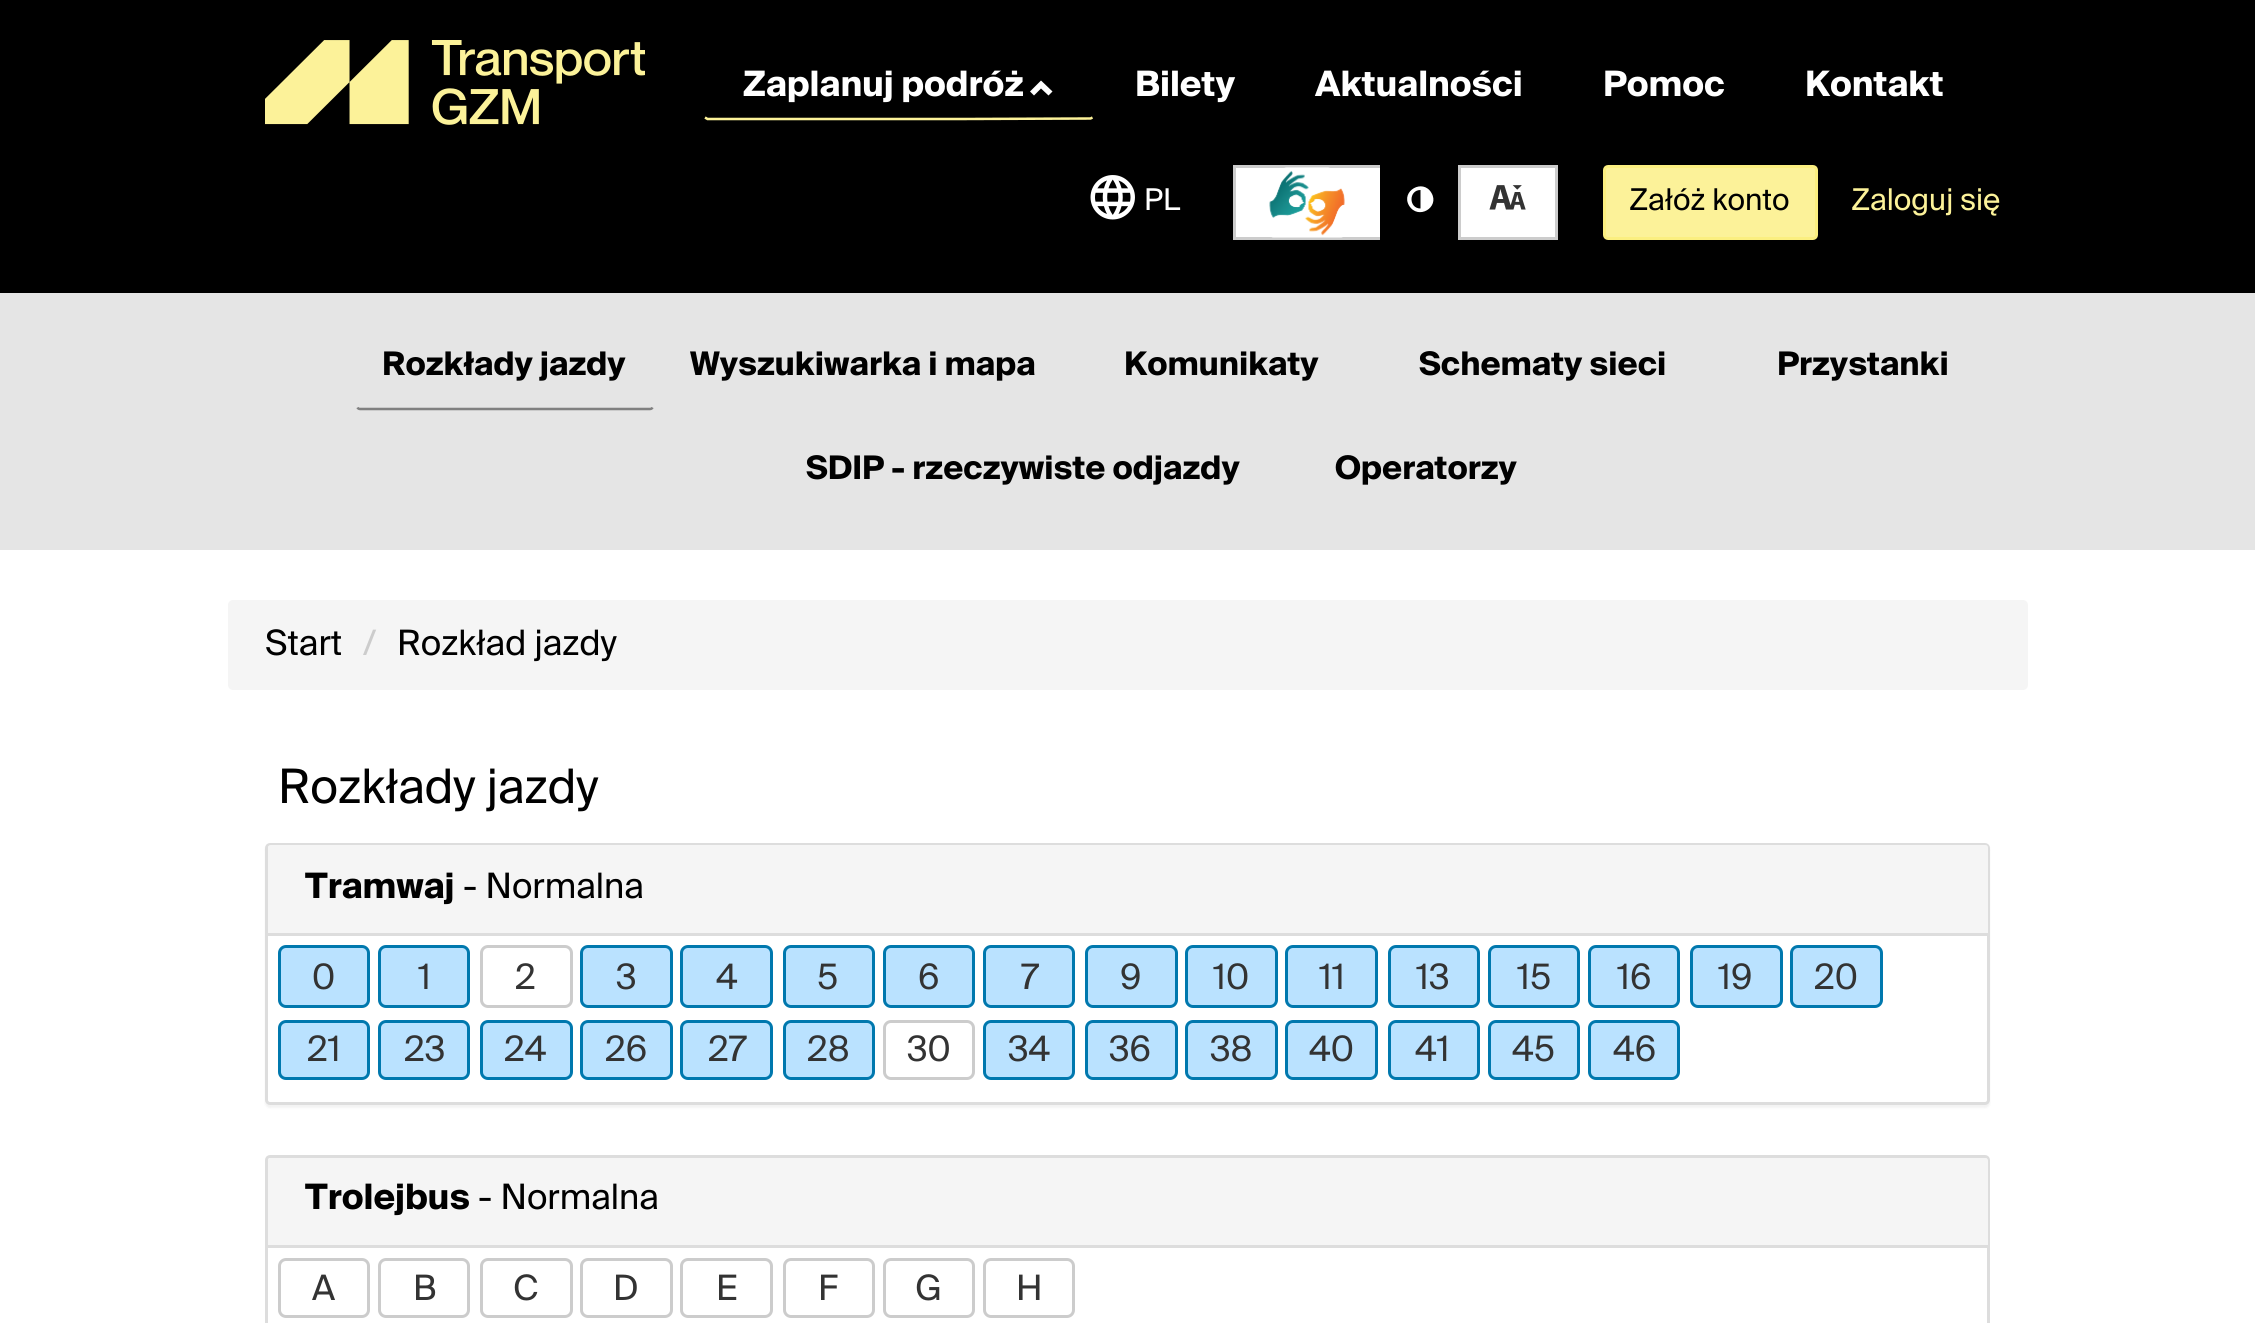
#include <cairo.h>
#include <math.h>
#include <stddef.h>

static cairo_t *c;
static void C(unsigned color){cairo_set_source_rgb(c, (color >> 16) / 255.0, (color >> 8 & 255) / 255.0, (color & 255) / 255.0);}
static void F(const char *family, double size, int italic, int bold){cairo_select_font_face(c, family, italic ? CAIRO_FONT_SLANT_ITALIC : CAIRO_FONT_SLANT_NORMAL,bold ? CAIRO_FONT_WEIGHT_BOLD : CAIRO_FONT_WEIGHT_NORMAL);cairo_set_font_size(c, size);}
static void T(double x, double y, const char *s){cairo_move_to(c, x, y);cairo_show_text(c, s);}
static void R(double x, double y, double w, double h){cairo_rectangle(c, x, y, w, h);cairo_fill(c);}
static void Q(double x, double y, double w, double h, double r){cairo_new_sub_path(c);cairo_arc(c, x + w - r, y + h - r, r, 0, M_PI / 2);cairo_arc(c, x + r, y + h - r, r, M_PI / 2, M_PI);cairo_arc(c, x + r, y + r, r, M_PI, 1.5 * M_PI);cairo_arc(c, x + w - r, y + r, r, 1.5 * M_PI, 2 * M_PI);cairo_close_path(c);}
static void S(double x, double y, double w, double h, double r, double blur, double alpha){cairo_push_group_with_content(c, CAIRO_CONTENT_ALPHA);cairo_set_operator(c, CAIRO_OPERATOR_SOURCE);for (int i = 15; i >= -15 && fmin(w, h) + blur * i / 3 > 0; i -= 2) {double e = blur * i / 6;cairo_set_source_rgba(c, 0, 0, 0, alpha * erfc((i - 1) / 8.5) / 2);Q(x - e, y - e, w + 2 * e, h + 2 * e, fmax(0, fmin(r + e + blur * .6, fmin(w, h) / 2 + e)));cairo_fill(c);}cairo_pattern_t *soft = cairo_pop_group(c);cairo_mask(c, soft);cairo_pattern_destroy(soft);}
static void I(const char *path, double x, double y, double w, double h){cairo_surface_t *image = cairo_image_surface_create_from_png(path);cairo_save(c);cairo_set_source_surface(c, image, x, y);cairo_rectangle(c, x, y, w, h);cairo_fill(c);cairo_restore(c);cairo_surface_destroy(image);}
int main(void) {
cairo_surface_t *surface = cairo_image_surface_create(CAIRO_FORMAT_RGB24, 2255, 1323);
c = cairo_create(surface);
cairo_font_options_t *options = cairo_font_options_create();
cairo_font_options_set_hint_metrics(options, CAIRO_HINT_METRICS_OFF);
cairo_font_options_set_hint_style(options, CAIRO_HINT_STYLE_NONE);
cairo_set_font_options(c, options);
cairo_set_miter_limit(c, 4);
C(0xffffff);
cairo_paint(c);
C(0x000000);
R(0,0,2255,293);
I("1.png",265,40,380,85);
cairo_new_path(c);
cairo_move_to(c,1092.5,117.5);
cairo_line_to(c,1090.5,118.5);
cairo_line_to(c,962.5,119);
cairo_line_to(c,707.5,119);
cairo_line_to(c,705,117.5);
C(0xfcf299);
cairo_set_line_width(c,2.5);
cairo_stroke(c);
F("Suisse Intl",35,0,1);
C(0xffffff);
T(743,96,"Zaplanuj podróż");
cairo_new_path(c);
cairo_move_to(c,1052.5,91.5);
cairo_line_to(c,1048.5,95.5);
cairo_line_to(c,1041,88.5);
cairo_line_to(c,1034,95.5);
cairo_line_to(c,1030,91.5);
cairo_line_to(c,1041,80.5);
cairo_close_path(c);
cairo_fill(c);
T(1135,96,"Bilety");
T(1315,96,"Aktualności");
T(1603,96,"Pomoc");
T(1805,96,"Kontakt");
I("2.png",1090,175,45,45);
F("Suisse Intl",30,0,0);
T(1144,210,"PL");
cairo_rectangle(c,1234.5,166.5,147,72);
cairo_fill_preserve(c);
C(0xcccccc);
cairo_set_line_width(c,3);
cairo_stroke(c);
I("3.png",1269,167,76,71);
C(0x000000);
R(1380,165,3,75);
C(0xffffff);
cairo_new_path(c);
cairo_move_to(c,1420.5,208.5);
cairo_line_to(c,1420.5,190);
cairo_curve_to(c,1408.5,190,1408.5,208.5,1420.5,208.5);
cairo_close_path(c);
cairo_move_to(c,1431.5,193);
cairo_curve_to(c,1440,207.5,1418,220.5,1409,205.5);
cairo_curve_to(c,1400.5,191,1423,178,1431.5,193);
cairo_close_path(c);
cairo_fill(c);
cairo_rectangle(c,1459.5,166.5,97,72);
cairo_fill_preserve(c);
C(0xcccccc);
cairo_stroke(c);
I("4.png",1489,185,37,25);
C(0xfcf299);
Q(1604.5,166.5,212,72,3.5);
cairo_fill_preserve(c);
C(0xfbef80);
cairo_stroke(c);
C(0x000000);
T(1629,210,"Załóż konto");
C(0xfcf299);
T(1851,210,"Zaloguj się");
C(0xe5e5e5);
R(0,293,2255,257);
cairo_new_path(c);
cairo_move_to(c,652.5,407.5);
cairo_curve_to(c,652,408.5,651,409,650,409);
cairo_line_to(c,360,409);
cairo_curve_to(c,359,409,358,408.5,357.5,407.5);
C(0x808080);
cairo_set_line_width(c,2.5);
cairo_stroke(c);
F("Suisse Intl",32.5,0,1);
C(0x000000);
T(382,375,"Rozkłady jazdy");
T(690,375,"Wyszukiwarka i mapa");
T(1124,375,"Komunikaty");
T(1419,375,"Schematy sieci");
T(1777,375,"Przystanki");
T(806,479,"SDIP - rzeczywiste odjazdy");
T(1335,479,"Operatorzy");
C(0xf5f5f5);
Q(228,600,1800,90,5);
cairo_fill(c);
F("Suisse Intl",35,0,0);
C(0x000000);
T(265,655,"Start");
C(0xcccccc);
T(363,655,"/");
C(0x000000);
T(397,655,"Rozkład jazdy");
F("Suisse Intl",47.5,0,0);
T(278,803,"Rozkłady jazdy");
C(0x000000);
S(265,845,1725,263,5,1,.05);
C(0xffffff);
Q(266.5,844.5,1722,259,3.5);
cairo_fill_preserve(c);
C(0xdddddd);
cairo_set_line_width(c,3);
cairo_stroke(c);
C(0xf5f5f5);
cairo_new_path(c);
cairo_move_to(c,270.5,845);
cairo_line_to(c,1985.5,845);
cairo_curve_to(c,1987,845,1988,846,1988,847.5);
cairo_line_to(c,1988,935);
cairo_line_to(c,268,935);
cairo_line_to(c,268,847.5);
cairo_curve_to(c,268,846,269,845,270.5,845);
cairo_close_path(c);
cairo_fill(c);
C(0xdddddd);
R(268,933,1720,3);
F("Suisse Intl",35,0,1);
C(0x000000);
T(305,898,"Tramwaj");
F("Suisse Intl",35,0,0);
T(463,898,"- Normalna");
C(0xbae2ff);
Q(279.5,946.5,89,60,6.5);
cairo_fill_preserve(c);
C(0x0078ae);
cairo_stroke(c);
C(0x333333);
T(312,989,"0");
C(0xbae2ff);
Q(379.5,946.5,89,60,6.5);
cairo_fill_preserve(c);
C(0x0078ae);
cairo_stroke(c);
C(0x333333);
T(418,989,"1");
Q(481.5,946.5,90,60,6.5);
C(0xcccccc);
cairo_stroke(c);
C(0x333333);
T(515,989,"2");
C(0xbae2ff);
Q(581.5,946.5,90,60,6.5);
cairo_fill_preserve(c);
C(0x0078ae);
cairo_stroke(c);
C(0x333333);
T(616,989,"3");
C(0xbae2ff);
Q(681.5,946.5,90,60,6.5);
cairo_fill_preserve(c);
C(0x0078ae);
cairo_stroke(c);
C(0x333333);
T(716,989,"4");
C(0xbae2ff);
Q(784.5,946.5,89,60,6.5);
cairo_fill_preserve(c);
C(0x0078ae);
cairo_stroke(c);
C(0x333333);
T(817,989,"5");
C(0xbae2ff);
Q(884.5,946.5,89,60,6.5);
cairo_fill_preserve(c);
C(0x0078ae);
cairo_stroke(c);
C(0x333333);
T(918,989,"6");
C(0xbae2ff);
Q(984.5,946.5,89,60,6.5);
cairo_fill_preserve(c);
C(0x0078ae);
cairo_stroke(c);
C(0x333333);
T(1021,989,"7");
C(0xbae2ff);
Q(1086.5,946.5,90,60,6.5);
cairo_fill_preserve(c);
C(0x0078ae);
cairo_stroke(c);
C(0x333333);
T(1120,989,"9");
C(0xbae2ff);
Q(1186.5,946.5,90,60,6.5);
cairo_fill_preserve(c);
C(0x0078ae);
cairo_stroke(c);
C(0x333333);
T(1213,989,"10");
C(0xbae2ff);
Q(1286.5,946.5,90,60,6.5);
cairo_fill_preserve(c);
C(0x0078ae);
cairo_stroke(c);
C(0x333333);
T(1319,989,"11");
C(0xbae2ff);
Q(1389.5,946.5,89,60,6.5);
cairo_fill_preserve(c);
C(0x0078ae);
cairo_stroke(c);
C(0x333333);
T(1416,989,"13");
C(0xbae2ff);
Q(1489.5,946.5,89,60,6.5);
cairo_fill_preserve(c);
C(0x0078ae);
cairo_stroke(c);
C(0x333333);
T(1517,989,"15");
C(0xbae2ff);
Q(1589.5,946.5,89,60,6.5);
cairo_fill_preserve(c);
C(0x0078ae);
cairo_stroke(c);
C(0x333333);
T(1617,989,"16");
C(0xbae2ff);
Q(1691.5,946.5,90,60,6.5);
cairo_fill_preserve(c);
C(0x0078ae);
cairo_stroke(c);
C(0x333333);
T(1718,989,"19");
C(0xbae2ff);
Q(1791.5,946.5,90,60,6.5);
cairo_fill_preserve(c);
C(0x0078ae);
cairo_stroke(c);
C(0x333333);
T(1814,989,"20");
C(0xbae2ff);
Q(279.5,1021.5,89,57,6.5);
cairo_fill_preserve(c);
C(0x0078ae);
cairo_stroke(c);
C(0x333333);
T(307,1061,"21");
C(0xbae2ff);
Q(379.5,1021.5,89,57,6.5);
cairo_fill_preserve(c);
C(0x0078ae);
cairo_stroke(c);
C(0x333333);
T(404,1061,"23");
C(0xbae2ff);
Q(481.5,1021.5,90,57,6.5);
cairo_fill_preserve(c);
C(0x0078ae);
cairo_stroke(c);
C(0x333333);
T(504,1061,"24");
C(0xbae2ff);
Q(581.5,1021.5,90,57,6.5);
cairo_fill_preserve(c);
C(0x0078ae);
cairo_stroke(c);
C(0x333333);
T(605,1061,"26");
C(0xbae2ff);
Q(681.5,1021.5,90,57,6.5);
cairo_fill_preserve(c);
C(0x0078ae);
cairo_stroke(c);
C(0x333333);
T(708,1061,"27");
C(0xbae2ff);
Q(784.5,1021.5,89,57,6.5);
cairo_fill_preserve(c);
C(0x0078ae);
cairo_stroke(c);
C(0x333333);
T(807,1061,"28");
Q(884.5,1021.5,89,57,6.5);
C(0xcccccc);
cairo_stroke(c);
C(0x333333);
T(907,1061,"30");
C(0xbae2ff);
Q(984.5,1021.5,89,57,6.5);
cairo_fill_preserve(c);
C(0x0078ae);
cairo_stroke(c);
C(0x333333);
T(1008,1061,"34");
C(0xbae2ff);
Q(1086.5,1021.5,90,57,6.5);
cairo_fill_preserve(c);
C(0x0078ae);
cairo_stroke(c);
C(0x333333);
T(1109,1061,"36");
C(0xbae2ff);
Q(1186.5,1021.5,90,57,6.5);
cairo_fill_preserve(c);
C(0x0078ae);
cairo_stroke(c);
C(0x333333);
T(1210,1061,"38");
C(0xbae2ff);
Q(1286.5,1021.5,90,57,6.5);
cairo_fill_preserve(c);
C(0x0078ae);
cairo_stroke(c);
C(0x333333);
T(1309,1061,"40");
C(0xbae2ff);
Q(1389.5,1021.5,89,57,6.5);
cairo_fill_preserve(c);
C(0x0078ae);
cairo_stroke(c);
C(0x333333);
T(1415,1061,"41");
C(0xbae2ff);
Q(1489.5,1021.5,89,57,6.5);
cairo_fill_preserve(c);
C(0x0078ae);
cairo_stroke(c);
C(0x333333);
T(1512,1061,"45");
C(0xbae2ff);
Q(1589.5,1021.5,89,57,6.5);
cairo_fill_preserve(c);
C(0x0078ae);
cairo_stroke(c);
C(0x333333);
T(1613,1061,"46");
Q(266.5,1156.5,1722,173,3.5);
C(0xdddddd);
cairo_stroke(c);
C(0xf5f5f5);
cairo_new_path(c);
cairo_move_to(c,270.5,1158);
cairo_line_to(c,1985.5,1158);
cairo_curve_to(c,1987,1158,1988,1159,1988,1160.5);
cairo_line_to(c,1988,1248);
cairo_line_to(c,268,1248);
cairo_line_to(c,268,1160.5);
cairo_curve_to(c,268,1159,269,1158,270.5,1158);
cairo_close_path(c);
cairo_fill(c);
C(0xdddddd);
R(268,1245,1720,3);
F("Suisse Intl",35,0,1);
C(0x000000);
T(305,1209,"Trolejbus");
F("Suisse Intl",35,0,0);
T(478,1209,"- Normalna");
Q(279.5,1259.5,89,57,6.5);
C(0xcccccc);
cairo_stroke(c);
C(0x333333);
T(312,1300,"A");
Q(379.5,1259.5,89,57,6.5);
C(0xcccccc);
cairo_stroke(c);
C(0x333333);
T(413,1300,"B");
Q(481.5,1259.5,90,57,6.5);
C(0xcccccc);
cairo_stroke(c);
C(0x333333);
T(513,1300,"C");
Q(581.5,1259.5,90,57,6.5);
C(0xcccccc);
cairo_stroke(c);
C(0x333333);
T(613,1300,"D");
Q(681.5,1259.5,90,57,6.5);
C(0xcccccc);
cairo_stroke(c);
C(0x333333);
T(716,1300,"E");
Q(784.5,1259.5,89,57,6.5);
C(0xcccccc);
cairo_stroke(c);
C(0x333333);
T(818,1300,"F");
Q(884.5,1259.5,89,57,6.5);
C(0xcccccc);
cairo_stroke(c);
C(0x333333);
T(915,1300,"G");
Q(984.5,1259.5,89,57,6.5);
C(0xcccccc);
cairo_stroke(c);
C(0x333333);
T(1016,1300,"H");
cairo_surface_write_to_png(surface, "o.png");
cairo_font_options_destroy(options);
cairo_destroy(c);
cairo_surface_destroy(surface);
return 0;
}
